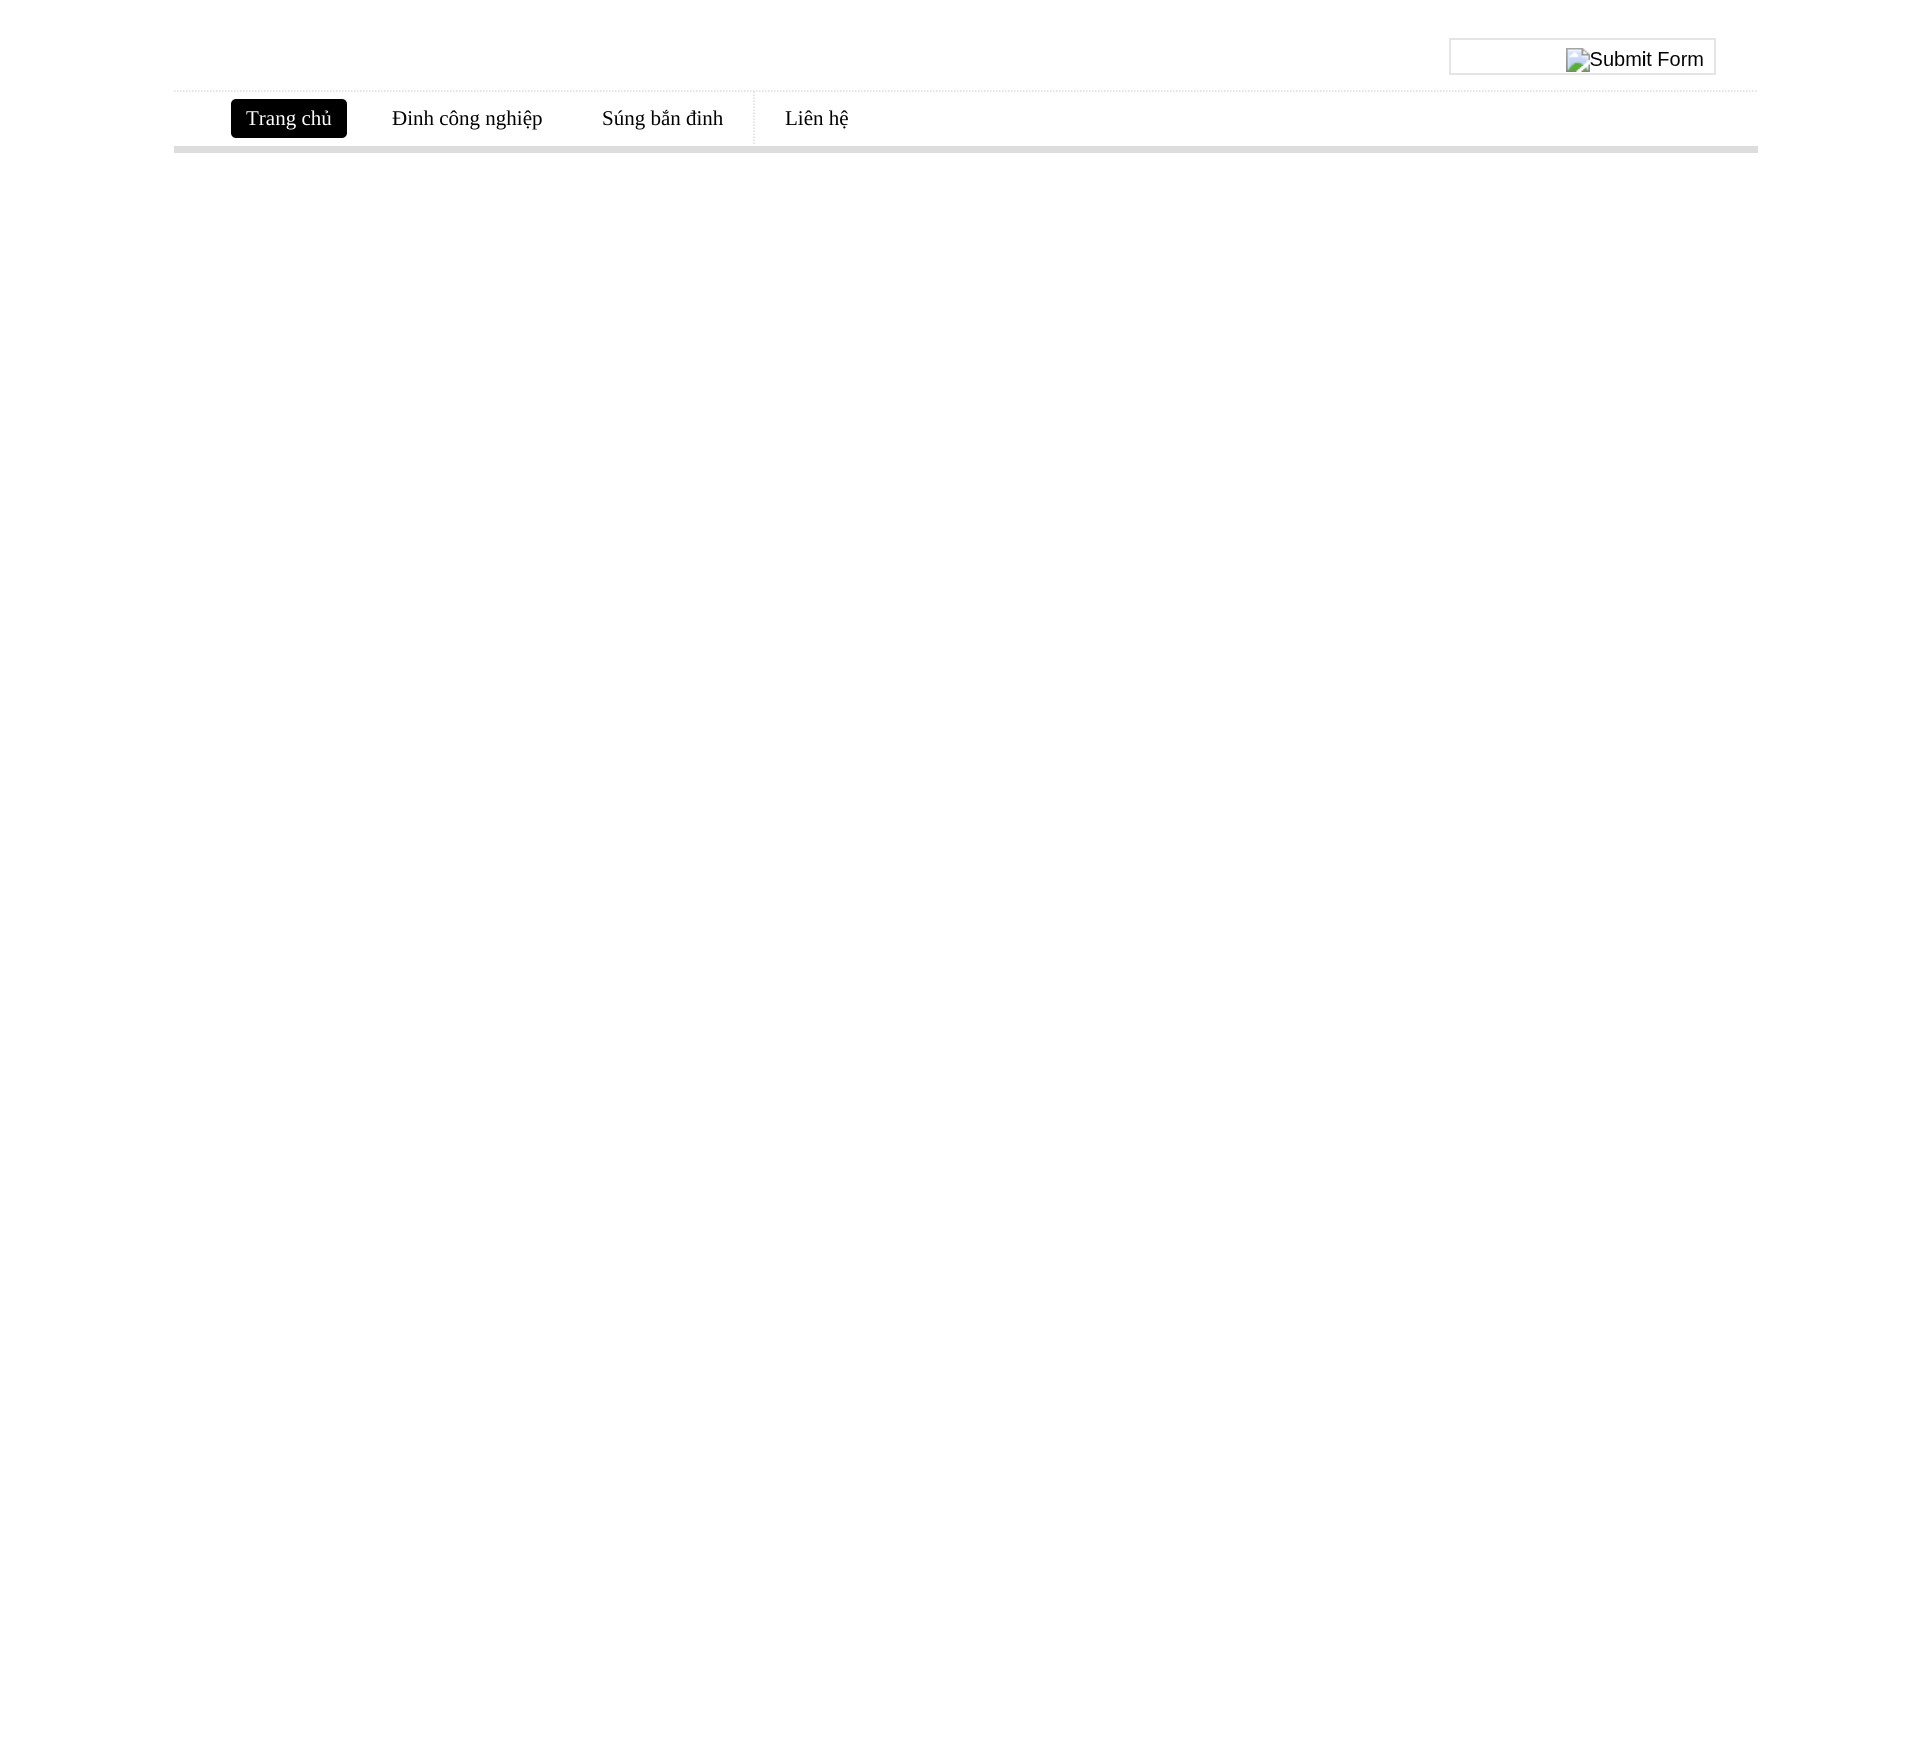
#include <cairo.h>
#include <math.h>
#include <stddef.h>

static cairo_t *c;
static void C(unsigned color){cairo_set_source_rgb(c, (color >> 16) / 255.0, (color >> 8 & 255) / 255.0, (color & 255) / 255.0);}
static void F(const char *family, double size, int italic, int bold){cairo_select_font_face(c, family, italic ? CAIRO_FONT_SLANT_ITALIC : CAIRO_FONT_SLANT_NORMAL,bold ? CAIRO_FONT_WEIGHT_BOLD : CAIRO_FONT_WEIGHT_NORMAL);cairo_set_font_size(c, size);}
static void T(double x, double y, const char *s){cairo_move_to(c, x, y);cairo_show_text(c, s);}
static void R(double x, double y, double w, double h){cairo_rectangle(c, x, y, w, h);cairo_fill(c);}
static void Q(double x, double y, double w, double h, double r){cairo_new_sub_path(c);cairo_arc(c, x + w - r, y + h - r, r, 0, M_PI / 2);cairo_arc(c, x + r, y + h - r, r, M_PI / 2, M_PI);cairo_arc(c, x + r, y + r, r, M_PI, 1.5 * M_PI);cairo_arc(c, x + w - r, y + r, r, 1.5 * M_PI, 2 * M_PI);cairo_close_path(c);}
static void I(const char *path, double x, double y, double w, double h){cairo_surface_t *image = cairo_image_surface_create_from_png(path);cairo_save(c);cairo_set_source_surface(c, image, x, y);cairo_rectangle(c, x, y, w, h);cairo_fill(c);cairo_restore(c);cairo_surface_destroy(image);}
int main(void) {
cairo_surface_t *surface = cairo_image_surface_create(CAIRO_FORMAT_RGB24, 1932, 1738);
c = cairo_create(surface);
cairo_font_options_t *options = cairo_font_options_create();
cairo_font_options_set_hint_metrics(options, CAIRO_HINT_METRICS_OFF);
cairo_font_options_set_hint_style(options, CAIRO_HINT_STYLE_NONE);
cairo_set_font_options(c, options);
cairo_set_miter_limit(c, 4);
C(0xffffff);
cairo_paint(c);
cairo_rectangle(c,1450,39,265,35);
C(0xe5e5e5);
cairo_stroke(c);
I("1.png",1566,48,137,24);
F("Liberation Sans",20,0,0);
C(0x000000);
T(1642,66,"i");
cairo_new_path(c);
cairo_move_to(c,174,91);
cairo_line_to(c,1758,91);
C(0xdddddd);
cairo_set_line_width(c,1.5);
cairo_set_dash(c,(double[]){1.5,1.5},2,0);
cairo_stroke(c);
R(174,146,1584,7);
C(0x000000);
Q(231,99,116,39,5);
cairo_fill(c);
F("Liberation Serif",21,0,0);
C(0xffffff);
T(246,125,"Trang chủ");
C(0x000000);
T(392,125,"Đinh công nghiệp");
T(602,125,"Súng bắn đinh");
cairo_new_path(c);
cairo_move_to(c,754,91.5);
cairo_line_to(c,754,145.5);
C(0xdddddd);
cairo_stroke(c);
C(0x000000);
T(785,125,"Liên hệ");
cairo_surface_write_to_png(surface, "o.png");
cairo_font_options_destroy(options);
cairo_destroy(c);
cairo_surface_destroy(surface);
return 0;
}
